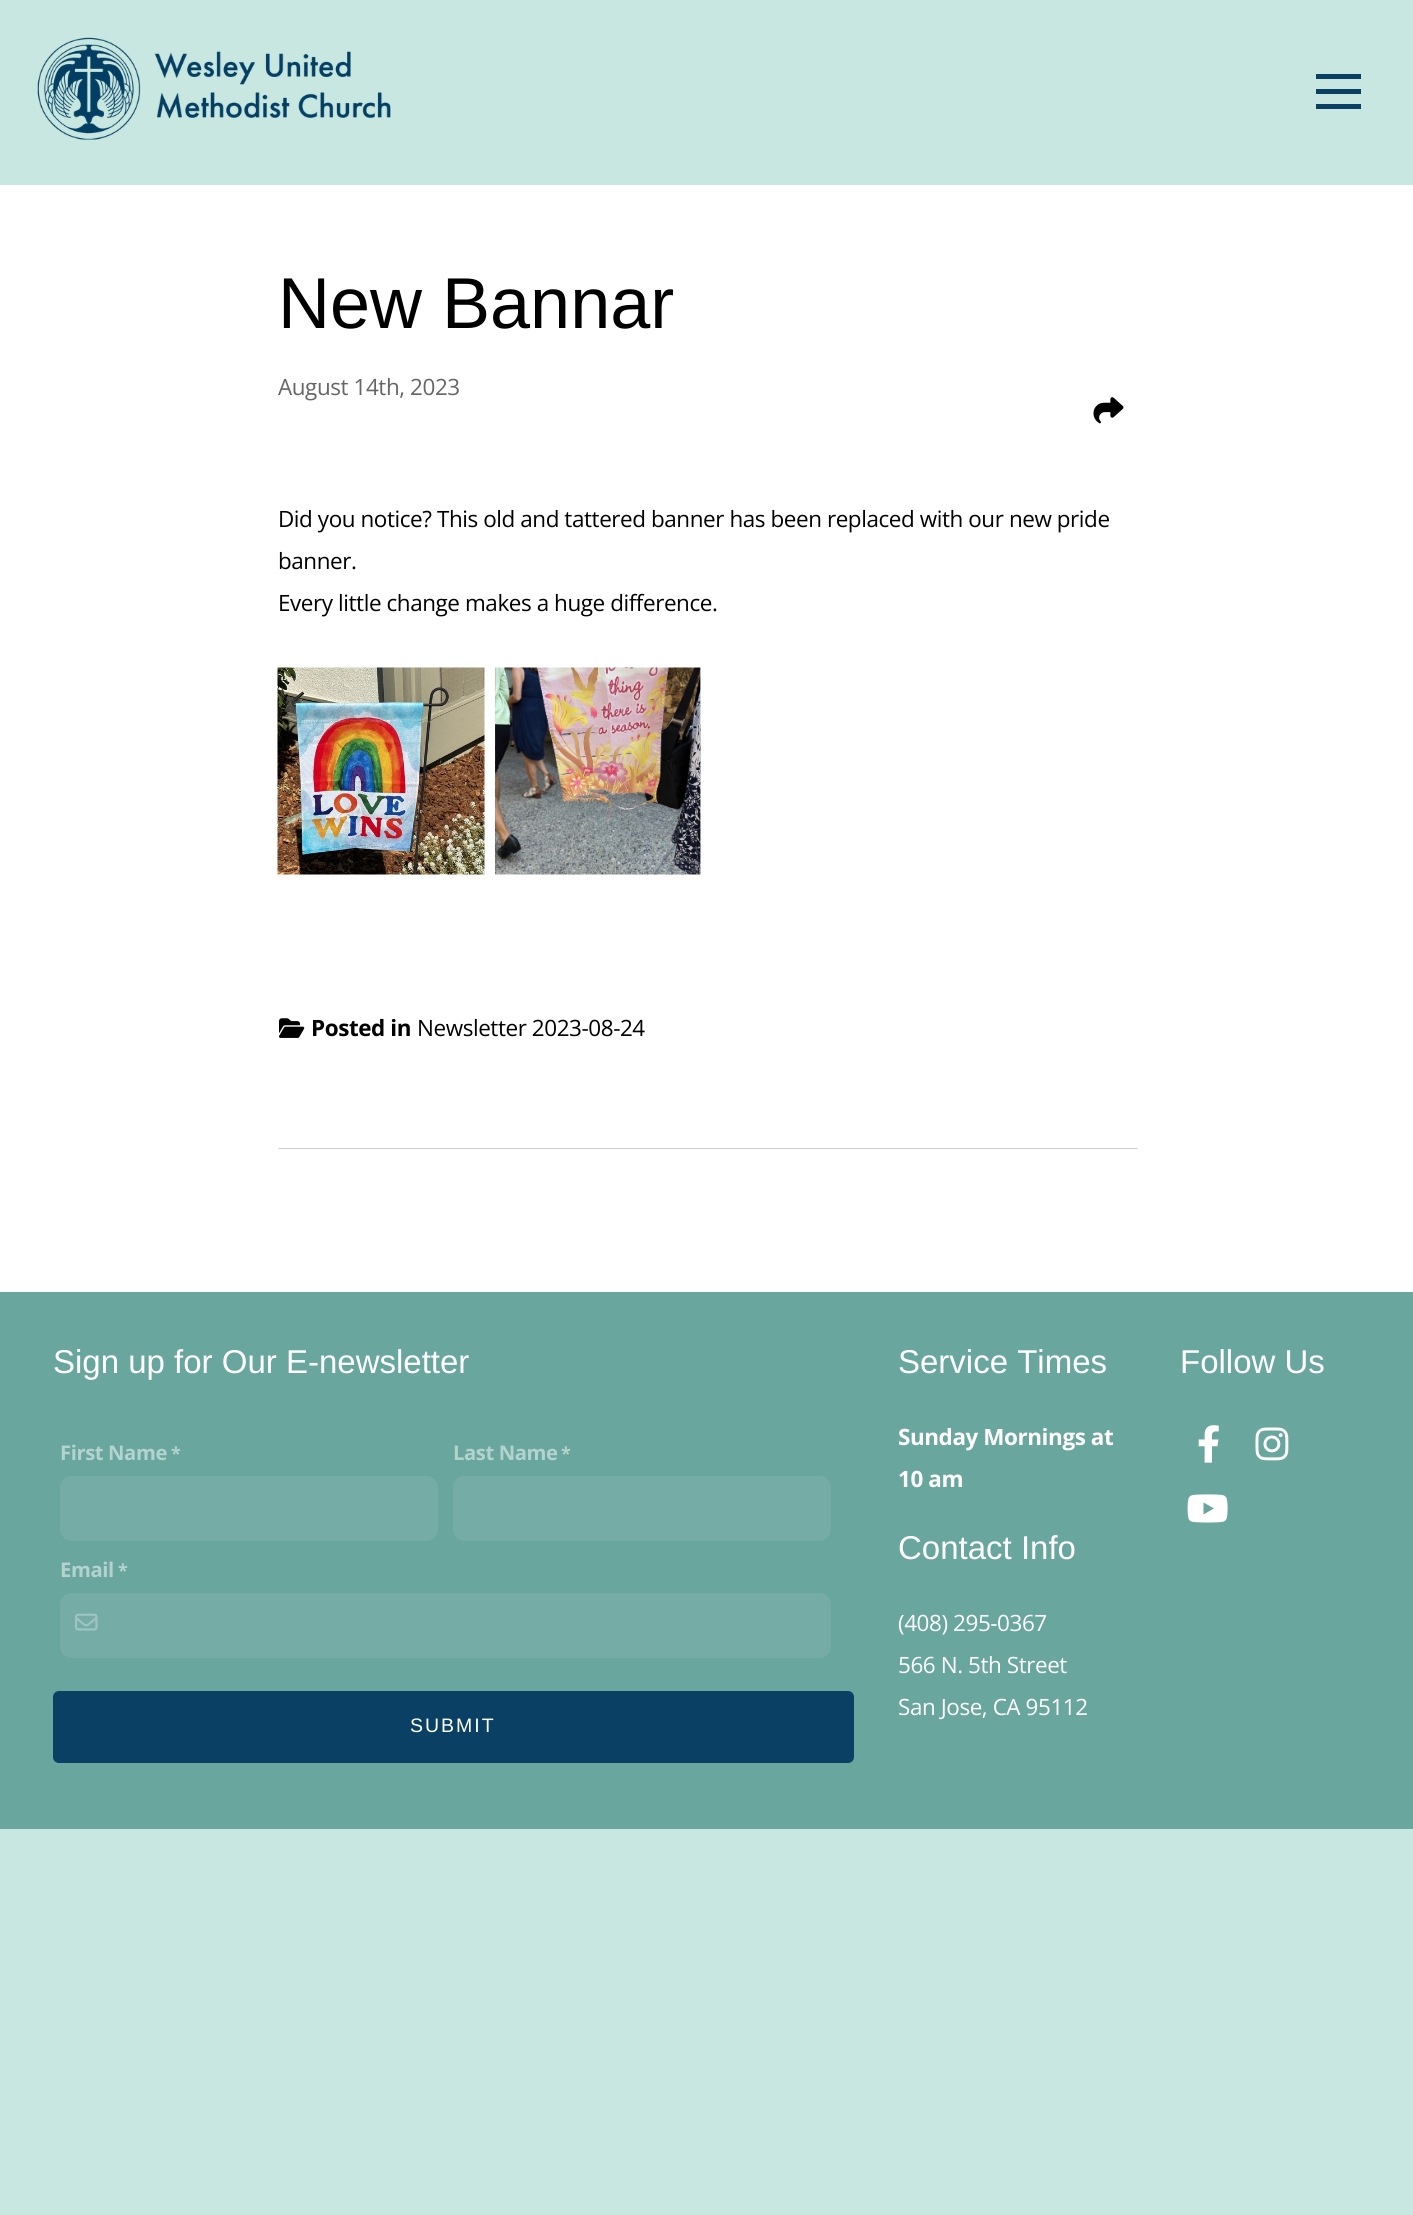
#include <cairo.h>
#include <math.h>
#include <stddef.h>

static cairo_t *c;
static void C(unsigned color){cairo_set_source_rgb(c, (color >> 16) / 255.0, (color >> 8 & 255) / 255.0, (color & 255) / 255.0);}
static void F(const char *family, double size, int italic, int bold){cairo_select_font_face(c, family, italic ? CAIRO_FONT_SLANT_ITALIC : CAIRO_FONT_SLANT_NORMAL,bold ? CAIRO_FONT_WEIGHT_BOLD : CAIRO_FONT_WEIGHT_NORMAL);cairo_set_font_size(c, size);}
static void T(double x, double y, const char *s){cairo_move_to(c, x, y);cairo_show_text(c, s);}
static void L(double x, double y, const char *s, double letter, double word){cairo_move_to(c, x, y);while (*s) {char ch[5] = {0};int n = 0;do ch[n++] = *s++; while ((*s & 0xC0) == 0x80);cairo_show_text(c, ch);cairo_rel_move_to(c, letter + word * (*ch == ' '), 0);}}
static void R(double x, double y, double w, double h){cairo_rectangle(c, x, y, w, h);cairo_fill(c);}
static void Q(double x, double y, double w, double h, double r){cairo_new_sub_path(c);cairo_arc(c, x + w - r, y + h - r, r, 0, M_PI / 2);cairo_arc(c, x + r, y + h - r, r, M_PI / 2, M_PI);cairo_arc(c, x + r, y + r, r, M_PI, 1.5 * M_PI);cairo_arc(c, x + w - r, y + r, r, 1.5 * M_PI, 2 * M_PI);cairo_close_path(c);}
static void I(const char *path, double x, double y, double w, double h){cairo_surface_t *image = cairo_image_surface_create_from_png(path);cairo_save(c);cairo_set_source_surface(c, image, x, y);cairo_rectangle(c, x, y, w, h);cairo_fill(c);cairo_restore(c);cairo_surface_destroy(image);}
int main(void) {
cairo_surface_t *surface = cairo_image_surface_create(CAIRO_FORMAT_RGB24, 1413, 2215);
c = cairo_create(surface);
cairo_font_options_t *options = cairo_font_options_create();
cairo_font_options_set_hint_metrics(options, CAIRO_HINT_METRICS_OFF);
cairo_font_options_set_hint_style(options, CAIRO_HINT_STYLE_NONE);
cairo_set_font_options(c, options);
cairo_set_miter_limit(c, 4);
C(0xc7e7e0);
cairo_paint(c);
I("1.png",37,37,354,103);
C(0x094063);
R(1316,74,45,5);
R(1316,89,45,5);
R(1316,104,45,5);
C(0xffffff);
R(0,185,1413,1107);
F("Liberation Sans",72,0,0);
C(0x000000);
T(278,328,"New Bannar");
F("Open Sans",22.45,0,0);
C(0x666666);
L(278,395,"August 14th, 2023",-.42,0);
I("2.png",1093,397,31,27);
C(0x000000);
L(278,527,"Did you notice? This old and tattered banner has been replaced with our new pride",-.42,0);
L(278,569,"banner.",-.42,0);
L(278,611,"Every little change makes a huge difference.",-.42,0);
I("3.png",277,667,208,208);
I("4.png",495,667,206,208);
I("5.png",279,1018,26,20);
F("Open Sans",22.45,0,1);
L(311,1036,"Posted in",-.42,0);
F("Open Sans",22.45,0,0);
L(417,1036,"Newsletter 2023-08-24",-.42,0);
C(0xcccccc);
cairo_new_path(c);
cairo_move_to(c,1138,1149);
cairo_line_to(c,278,1149);
cairo_line_to(c,279,1148);
cairo_line_to(c,1137,1148);
cairo_close_path(c);
cairo_fill(c);
C(0x69a69e);
R(0,1292,1413,537);
F("Liberation Sans",33,0,0);
C(0xffffff);
T(53,1373,"Sign up for Our E-newsletter");
F("Open Sans",20.25,0,1);
C(0xb4d3cf);
L(60,1460,"First Name",-.42,0);
F("Open Sans",18,0,1);
L(171,1460,"*",-.42,0);
C(0x75ada6);
Q(60,1476,378,65,12);
cairo_fill(c);
F("Open Sans",20.25,0,1);
C(0xb4d3cf);
L(453,1460,"Last Name",-.42,0);
F("Open Sans",18,0,1);
L(561,1460,"*",-.42,0);
C(0x75ada6);
Q(453,1476,378,65,12);
cairo_fill(c);
F("Open Sans",20.25,0,1);
C(0xb4d3cf);
L(60,1577,"Email",-.42,0);
F("Open Sans",18,0,1);
L(118,1577,"*",-.42,0);
C(0x75ada6);
Q(60,1593,771,65,12);
cairo_fill(c);
I("6.png",75,1613,23,18);
C(0x094063);
Q(53,1691,801,72,6);
cairo_fill(c);
F("Liberation Sans",19.5,0,0);
C(0xffffff);
L(410,1732,"SUBMIT",2,0);
F("Liberation Sans",33,0,0);
T(898,1373,"Service Times");
F("Open Sans",22.45,0,1);
L(898,1445,"Sunday Mornings at",-.42,0);
L(898,1487,"10 am",-.42,0);
F("Liberation Sans",33,0,0);
T(898,1559,"Contact Info");
F("Open Sans",22.45,0,0);
L(898,1631,"(408) 295-0367",-.42,0);
L(898,1673,"566 N. 5th Street",-.42,0);
L(898,1715,"San Jose, CA 95112",-.42,0);
F("Liberation Sans",33,0,0);
T(1180,1373,"Follow Us");
I("7.png",1198,1425,21,38);
I("8.png",1255,1427,34,34);
I("9.png",1187,1494,41,29);
cairo_surface_write_to_png(surface, "o.png");
cairo_font_options_destroy(options);
cairo_destroy(c);
cairo_surface_destroy(surface);
return 0;
}
